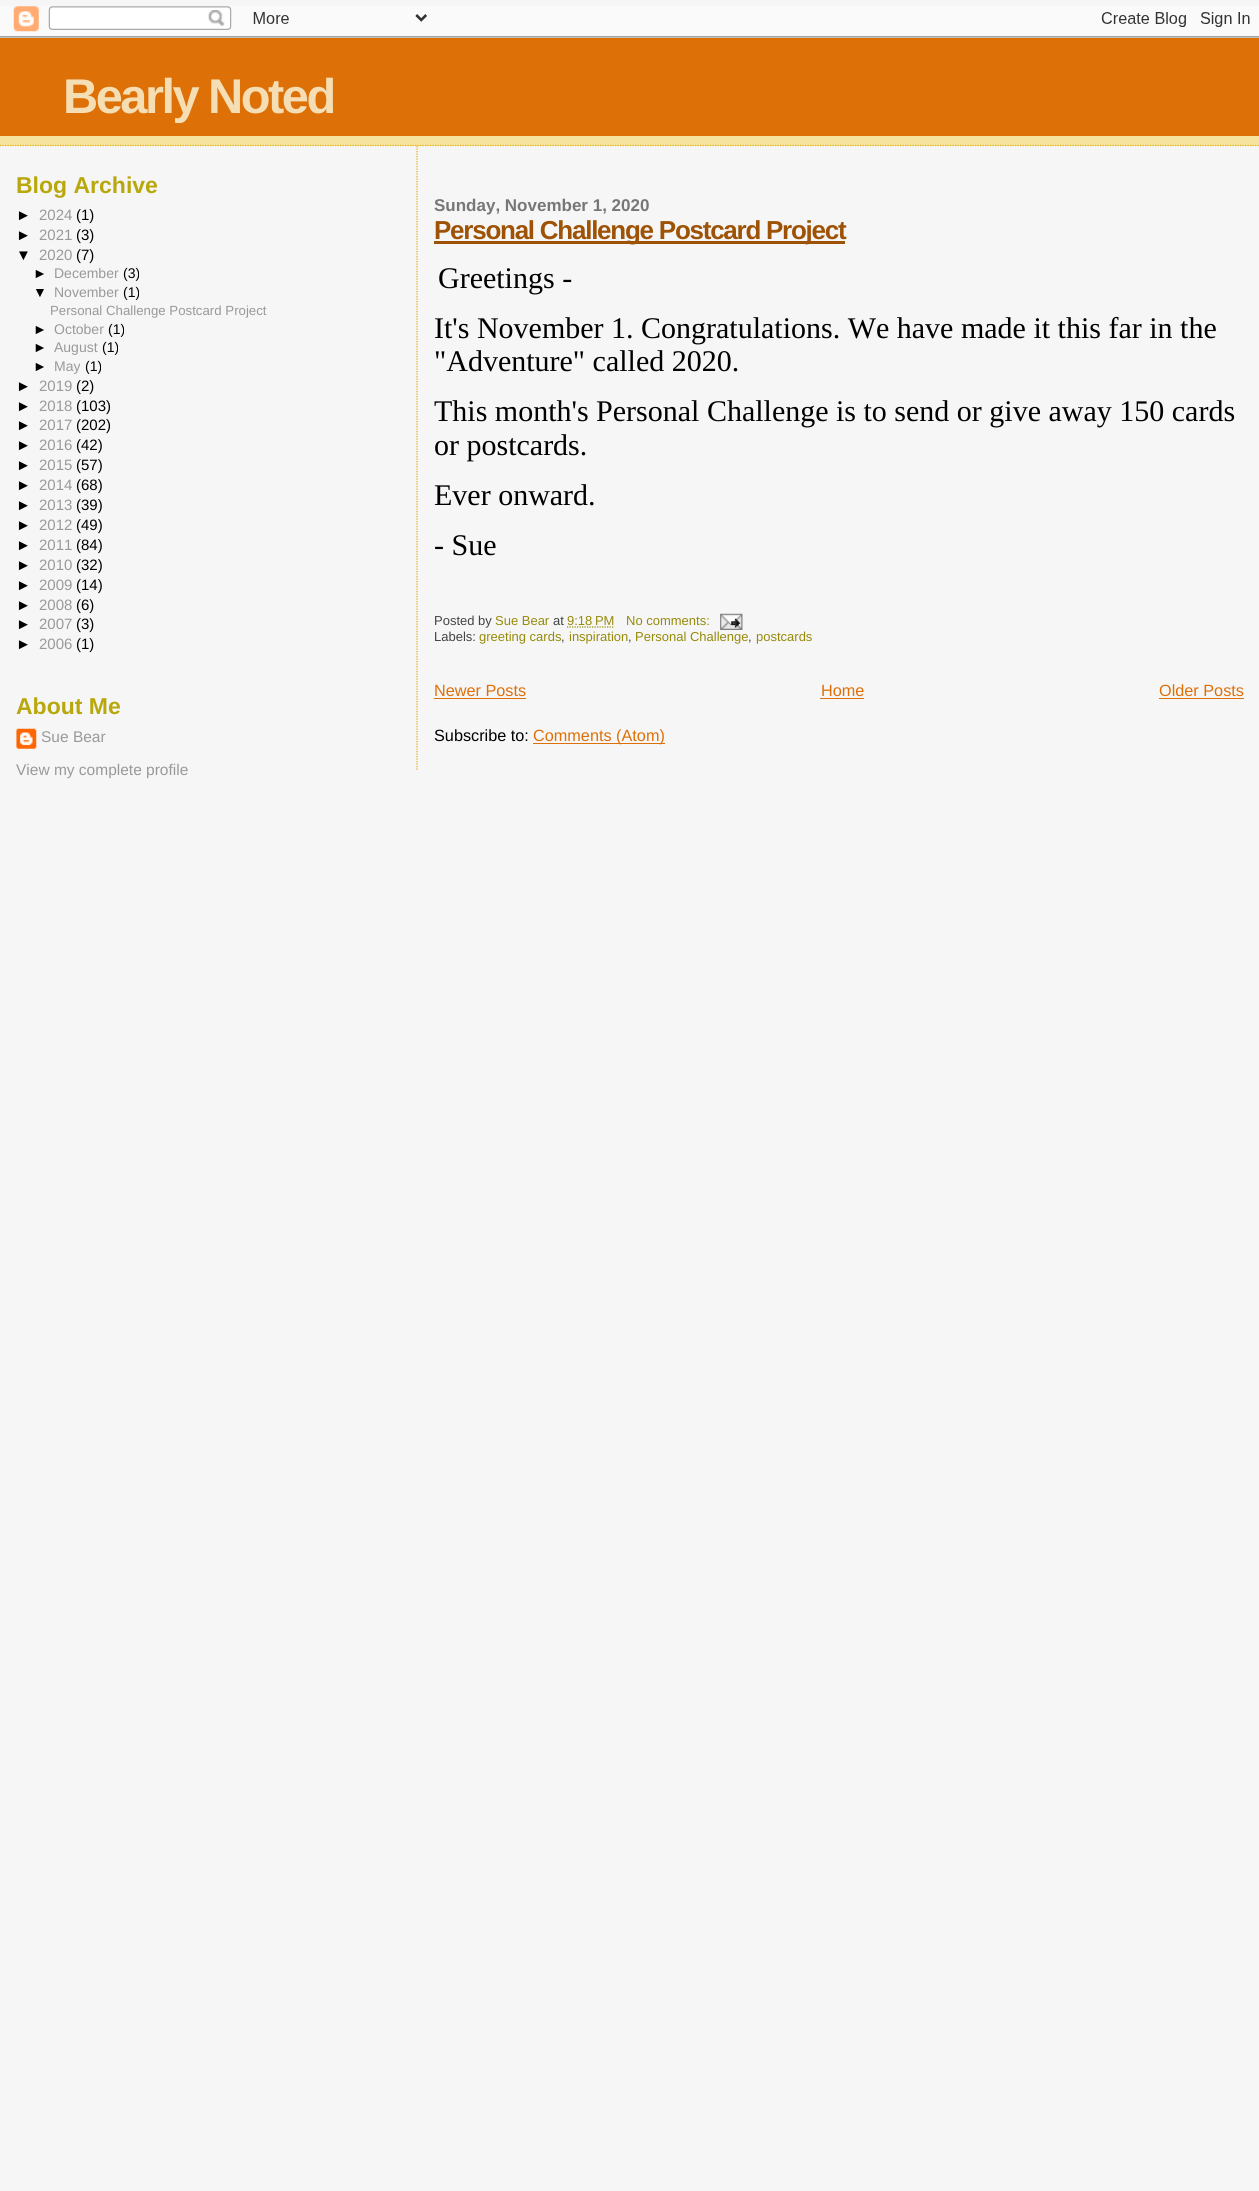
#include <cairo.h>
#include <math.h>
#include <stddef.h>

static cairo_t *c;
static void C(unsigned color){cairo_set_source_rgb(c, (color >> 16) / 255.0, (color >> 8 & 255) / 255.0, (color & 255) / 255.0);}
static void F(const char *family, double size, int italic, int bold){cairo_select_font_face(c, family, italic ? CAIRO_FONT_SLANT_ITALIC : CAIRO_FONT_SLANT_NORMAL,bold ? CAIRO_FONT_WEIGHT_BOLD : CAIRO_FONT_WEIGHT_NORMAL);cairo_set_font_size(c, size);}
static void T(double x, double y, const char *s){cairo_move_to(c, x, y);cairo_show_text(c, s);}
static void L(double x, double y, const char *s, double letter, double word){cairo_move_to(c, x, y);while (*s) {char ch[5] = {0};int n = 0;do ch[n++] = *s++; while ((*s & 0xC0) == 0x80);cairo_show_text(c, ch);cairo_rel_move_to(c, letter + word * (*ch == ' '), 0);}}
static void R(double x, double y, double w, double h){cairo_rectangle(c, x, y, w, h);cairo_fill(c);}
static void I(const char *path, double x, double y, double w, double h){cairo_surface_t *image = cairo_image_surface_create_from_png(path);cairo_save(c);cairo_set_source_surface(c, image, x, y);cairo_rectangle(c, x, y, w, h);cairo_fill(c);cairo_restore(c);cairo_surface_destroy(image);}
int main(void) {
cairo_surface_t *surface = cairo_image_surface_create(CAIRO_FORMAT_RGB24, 1259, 2191);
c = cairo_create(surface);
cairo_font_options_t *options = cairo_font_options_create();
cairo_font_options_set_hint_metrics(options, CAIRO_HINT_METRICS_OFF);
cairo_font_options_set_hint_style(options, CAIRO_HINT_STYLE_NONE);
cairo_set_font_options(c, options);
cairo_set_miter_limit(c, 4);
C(0xf6f6f6);
cairo_paint(c);
I("1.png",0,6,1259,32);
C(0xf5e39e);
R(0,136,1259,10);
cairo_new_path(c);
cairo_move_to(c,0,145.5);
cairo_line_to(c,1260,145.5);
C(0xe0ad12);
cairo_set_line_width(c,1.2);
cairo_set_dash(c,(double[]){1.25,1.25},2,0);
cairo_stroke(c);
C(0xde7008);
R(0,38,1259,98);
F("Liberation Sans",48.75,0,1);
C(0xf5deb3);
L(63,113,"Bearly Noted",-2.5,0);
F("Liberation Sans",23,0,1);
C(0xb8a80d);
T(16,193,"Blog Archive");
F("Liberation Sans",15,0,0);
C(0x000000);
T(16,220,"►");
C(0x999999);
T(39,220,"2024");
C(0x000000);
T(76,220,"(1)");
T(16,240,"►");
C(0x999999);
T(39,240,"2021");
C(0x000000);
T(76,240,"(3)");
T(16,260,"▼");
C(0x999999);
T(39,260,"2020");
C(0x000000);
T(76,260,"(7)");
F("Liberation Sans",14,0,0);
T(33,278,"►");
C(0x999999);
T(54,278,"December");
C(0x000000);
T(123,278,"(3)");
T(33,297,"▼");
C(0x999999);
T(54,297,"November");
C(0x000000);
T(123,297,"(1)");
F("Liberation Sans",13.25,0,0);
C(0x999999);
T(50,315,"Personal Challenge Postcard Project");
F("Liberation Sans",14,0,0);
C(0x000000);
T(33,334,"►");
C(0x999999);
T(54,334,"October");
C(0x000000);
T(108,334,"(1)");
T(33,352,"►");
C(0x999999);
T(54,352,"August");
C(0x000000);
T(102,352,"(1)");
T(33,371,"►");
C(0x999999);
T(54,371,"May");
C(0x000000);
T(85,371,"(1)");
F("Liberation Sans",15,0,0);
T(16,391,"►");
C(0x999999);
T(39,391,"2019");
C(0x000000);
T(76,391,"(2)");
T(16,411,"►");
C(0x999999);
T(39,411,"2018");
C(0x000000);
T(76,411,"(103)");
T(16,430,"►");
C(0x999999);
T(39,430,"2017");
C(0x000000);
T(76,430,"(202)");
T(16,450,"►");
C(0x999999);
T(39,450,"2016");
C(0x000000);
T(76,450,"(42)");
T(16,470,"►");
C(0x999999);
T(39,470,"2015");
C(0x000000);
T(76,470,"(57)");
T(16,490,"►");
C(0x999999);
T(39,490,"2014");
C(0x000000);
T(76,490,"(68)");
T(16,510,"►");
C(0x999999);
T(39,510,"2013");
C(0x000000);
T(76,510,"(39)");
T(16,530,"►");
C(0x999999);
T(39,530,"2012");
C(0x000000);
T(76,530,"(49)");
T(16,550,"►");
C(0x999999);
T(39,550,"2011");
C(0x000000);
T(76,550,"(84)");
T(16,570,"►");
C(0x999999);
T(39,570,"2010");
C(0x000000);
T(76,570,"(32)");
T(16,590,"►");
C(0x999999);
T(39,590,"2009");
C(0x000000);
T(76,590,"(14)");
T(16,610,"►");
C(0x999999);
T(39,610,"2008");
C(0x000000);
T(76,610,"(6)");
T(16,629,"►");
C(0x999999);
T(39,629,"2007");
C(0x000000);
T(76,629,"(3)");
T(16,649,"►");
C(0x999999);
T(39,649,"2006");
C(0x000000);
T(76,649,"(1)");
F("Liberation Sans",23,0,1);
C(0xb8a80d);
T(16,714,"About Me");
I("2.png",16,728,21,21);
F("Liberation Sans",15.5,0,0);
C(0x999999);
T(41,742,"Sue Bear");
T(16,775,"View my complete profile");
cairo_new_path(c);
cairo_move_to(c,417,146);
cairo_line_to(c,417,770);
C(0xe0ad12);
cairo_stroke(c);
F("Liberation Sans",17,0,1);
C(0x777777);
T(434,211,"Sunday, November 1, 2020");
C(0x9e5205);
R(434,241,411,3);
F("Liberation Sans",26,0,1);
L(434,239,"Personal Challenge Postcard Project",-1.25,0);
F("Liberation Serif",30,0,0);
C(0x000000);
T(438,288,"Greetings -");
T(434,338,"It's November 1. Congratulations. We have made it this far in the");
T(434,371,"\"Adventure\" called 2020.");
T(434,421,"This month's Personal Challenge is to send or give away 150 cards");
T(434,455,"or postcards.");
T(434,505,"Ever onward.");
T(434,555,"- Sue");
F("Liberation Sans",13,0,0);
C(0x444444);
T(434,625,"Posted by");
C(0x968a0a);
T(495,625,"Sue Bear");
C(0x444444);
T(553,625,"at");
C(0x968a0a);
T(567,625,"9:18 PM");
cairo_new_path(c);
cairo_move_to(c,567,627);
cairo_line_to(c,614.5,627);
cairo_stroke(c);
T(626,625,"No comments:");
I("3.png",720,613,23,17);
C(0x444444);
T(434,641,"Labels:");
C(0x968a0a);
T(479,641,"greeting cards");
C(0x444444);
T(561,641,",");
C(0x968a0a);
T(569,641,"inspiration");
C(0x444444);
T(628,641,",");
C(0x968a0a);
T(635,641,"Personal Challenge");
C(0x444444);
T(748,641,",");
C(0x968a0a);
T(756,641,"postcards");
F("Liberation Sans",16.25,0,0);
C(0xde7008);
T(434,696,"Newer Posts");
R(434,698,92,1);
T(821,696,"Home");
R(820,698,44,1);
T(1159,696,"Older Posts");
R(1159,698,85,1);
C(0x000000);
T(434,741,"Subscribe to:");
C(0xde7008);
R(533,743,132,1);
T(533,741,"Comments (Atom)");
cairo_surface_write_to_png(surface, "o.png");
cairo_font_options_destroy(options);
cairo_destroy(c);
cairo_surface_destroy(surface);
return 0;
}
